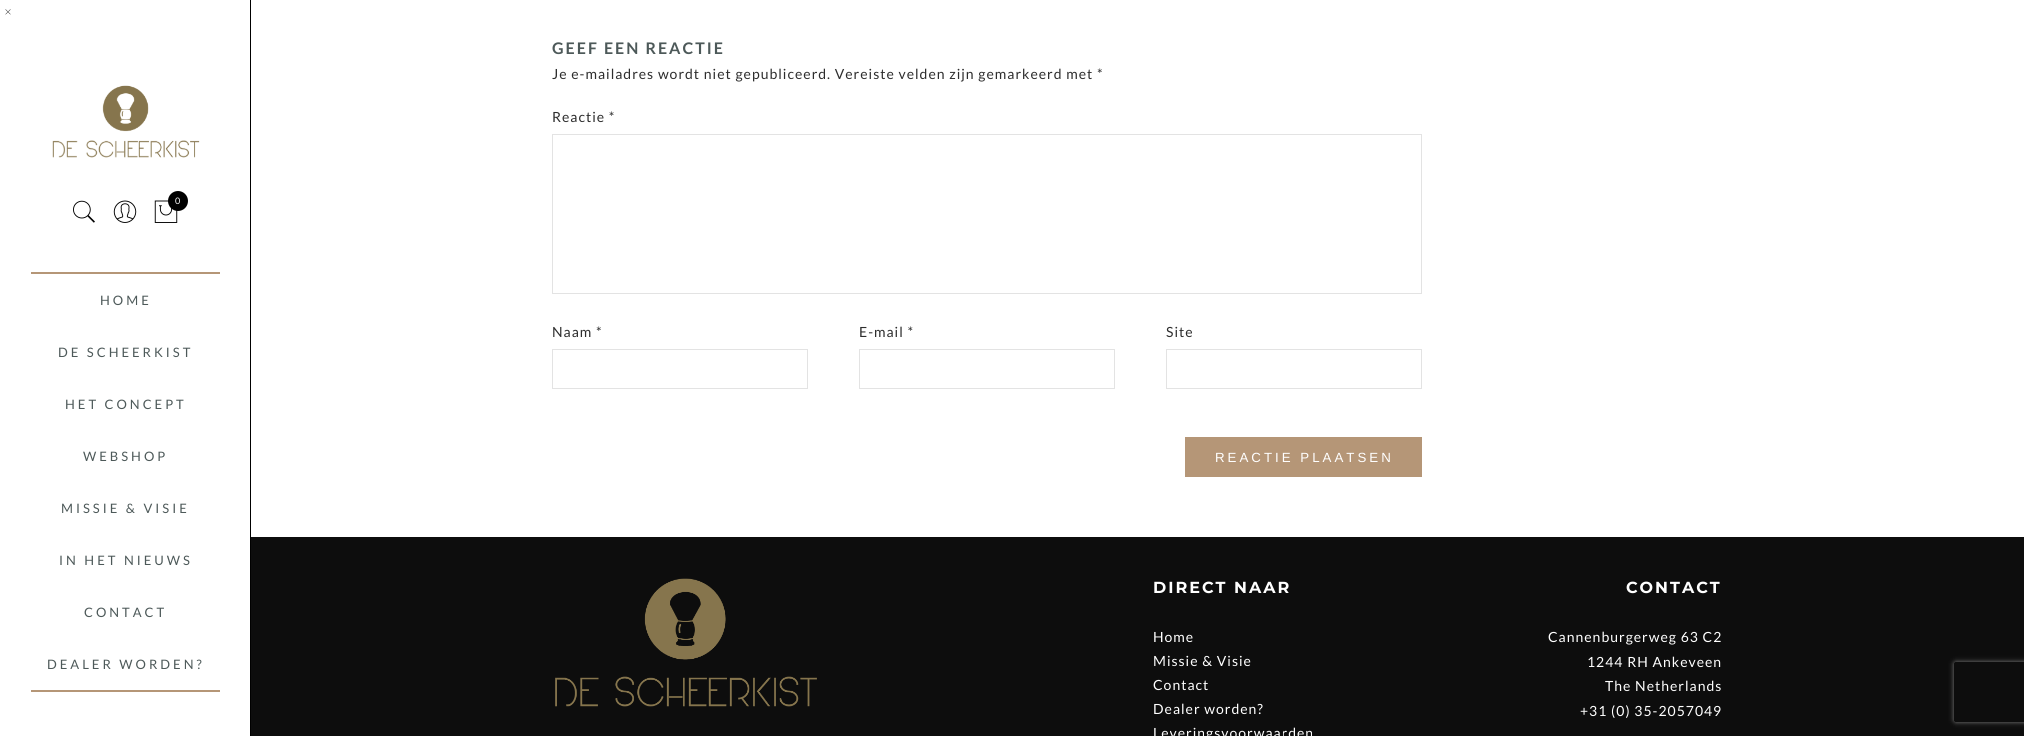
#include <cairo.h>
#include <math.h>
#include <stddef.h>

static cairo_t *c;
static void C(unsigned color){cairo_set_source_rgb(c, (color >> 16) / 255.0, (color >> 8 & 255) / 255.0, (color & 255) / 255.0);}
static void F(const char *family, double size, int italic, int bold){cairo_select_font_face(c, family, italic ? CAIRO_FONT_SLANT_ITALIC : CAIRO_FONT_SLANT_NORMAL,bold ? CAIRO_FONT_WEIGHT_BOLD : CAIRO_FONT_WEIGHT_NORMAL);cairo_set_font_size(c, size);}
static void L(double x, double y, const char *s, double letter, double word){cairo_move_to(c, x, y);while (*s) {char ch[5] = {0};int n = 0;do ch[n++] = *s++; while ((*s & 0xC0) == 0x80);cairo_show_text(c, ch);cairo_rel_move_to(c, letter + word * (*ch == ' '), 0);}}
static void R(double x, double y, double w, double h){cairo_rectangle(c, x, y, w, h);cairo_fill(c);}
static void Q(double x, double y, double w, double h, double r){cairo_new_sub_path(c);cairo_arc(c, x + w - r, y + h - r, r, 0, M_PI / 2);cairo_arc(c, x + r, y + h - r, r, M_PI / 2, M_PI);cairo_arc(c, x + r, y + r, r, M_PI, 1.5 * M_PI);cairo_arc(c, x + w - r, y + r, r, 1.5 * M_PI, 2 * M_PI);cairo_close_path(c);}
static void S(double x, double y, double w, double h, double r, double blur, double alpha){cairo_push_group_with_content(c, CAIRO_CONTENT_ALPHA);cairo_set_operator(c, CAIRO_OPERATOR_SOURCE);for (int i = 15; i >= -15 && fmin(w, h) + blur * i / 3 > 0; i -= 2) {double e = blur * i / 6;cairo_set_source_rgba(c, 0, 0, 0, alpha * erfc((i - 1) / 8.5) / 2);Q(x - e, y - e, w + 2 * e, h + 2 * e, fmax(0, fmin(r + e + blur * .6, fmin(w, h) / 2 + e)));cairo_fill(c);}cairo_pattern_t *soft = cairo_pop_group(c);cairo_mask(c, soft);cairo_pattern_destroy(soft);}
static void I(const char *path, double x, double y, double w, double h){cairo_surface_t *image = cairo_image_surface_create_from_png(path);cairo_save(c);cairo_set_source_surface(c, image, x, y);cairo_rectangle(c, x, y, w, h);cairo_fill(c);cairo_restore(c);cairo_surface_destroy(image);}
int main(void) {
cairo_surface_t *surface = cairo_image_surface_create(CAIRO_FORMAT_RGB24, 2024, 736);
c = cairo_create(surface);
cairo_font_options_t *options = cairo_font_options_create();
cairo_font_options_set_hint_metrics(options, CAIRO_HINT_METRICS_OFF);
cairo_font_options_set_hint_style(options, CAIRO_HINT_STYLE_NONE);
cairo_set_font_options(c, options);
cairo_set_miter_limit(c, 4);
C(0xffffff);
cairo_paint(c);
C(0x000000);
R(250,0,1,736);
I("1.png",5,9,6,6);
I("2.png",52,85,148,73);
I("3.png",73,200,22,23);
I("4.png",113,200,24,23);
I("5.png",154,200,24,23);
cairo_arc(c,178,201,10,0,2 * M_PI);
cairo_fill(c);
F("Lato",9,0,0);
C(0xffffff);
L(175,204,"0",1,0);
C(0xb59677);
R(31,272,189,2);
R(31,690,189,2);
F("Lato",13,0,0);
C(0x4d5959);
L(100,305,"HOME",3,0);
L(58,357,"DE SCHEERKIST",3,0);
L(65,409,"HET CONCEPT",3,0);
L(83,461,"WEBSHOP",3,0);
L(61,513,"MISSIE & VISIE",3,0);
L(59,565,"IN HET NIEUWS",3,0);
L(84,617,"CONTACT",3,0);
L(47,669,"DEALER WORDEN?",3,0);
F("Lato",16,0,1);
L(552,54,"GEEF EEN REACTIE",2,0);
F("Lato",14,0,0);
C(0x2d2d2d);
L(552,79,"Je e-mailadres wordt niet gepubliceerd. Vereiste velden zijn gemarkeerd met *",1,0);
L(552,122,"Reactie *",1,0);
cairo_rectangle(c,552.5,134.5,869,159);
C(0xe3e3e3);
cairo_set_line_width(c,1);
cairo_stroke(c);
C(0x2d2d2d);
L(552,337,"Naam *",1,0);
cairo_rectangle(c,552.5,349.5,255,39);
C(0xe3e3e3);
cairo_stroke(c);
C(0x2d2d2d);
L(859,337,"E-mail *",1,0);
cairo_rectangle(c,859.5,349.5,255,39);
C(0xe3e3e3);
cairo_stroke(c);
C(0x2d2d2d);
L(1166,337,"Site",1,0);
cairo_rectangle(c,1166.5,349.5,255,39);
C(0xe3e3e3);
cairo_stroke(c);
C(0xb59677);
R(1185,437,237,40);
F("Liberation Sans",13.3,0,0);
C(0xffffff);
L(1215,462,"REACTIE PLAATSEN",3,0);
C(0x0d0d0d);
R(251,537,1773,199);
I("6.png",555,578,262,129);
F("Montserrat",16,0,1);
C(0xffffff);
L(1153,593,"DIRECT NAAR",2,0);
F("Lato",14,0,0);
L(1153,642,"Home",1,0);
L(1153,666,"Missie & Visie",1,0);
L(1153,690,"Contact",1,0);
L(1153,714,"Dealer worden?",1,0);
L(1153,738,"Leveringsvoorwaarden",1,0);
F("Montserrat",16,0,1);
L(1626,593,"CONTACT",2,0);
F("Lato",14,0,0);
L(1548,642,"Cannenburgerweg 63 C2",1,0);
L(1587,667,"1244 RH Ankeveen",1,0);
L(1605,691,"The Netherlands",1,0);
L(1580,716,"+31 (0) 35-2057049",1,0);
cairo_save(c);
cairo_set_fill_rule(c,CAIRO_FILL_RULE_EVEN_ODD);
cairo_new_path(c);
cairo_move_to(c,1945,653);
cairo_line_to(c,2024,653);
cairo_line_to(c,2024,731);
cairo_line_to(c,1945,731);
cairo_close_path(c);
cairo_move_to(c,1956,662);
cairo_line_to(c,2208,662);
cairo_curve_to(c,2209,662,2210,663,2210,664);
cairo_line_to(c,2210,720);
cairo_curve_to(c,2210,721,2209,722,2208,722);
cairo_line_to(c,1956,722);
cairo_curve_to(c,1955,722,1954,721,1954,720);
cairo_line_to(c,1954,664);
cairo_curve_to(c,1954,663,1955,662,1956,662);
cairo_close_path(c);
cairo_clip(c);
C(0x808080);
S(1954,662,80,60,2,2.5,1);
cairo_restore(c);
cairo_surface_write_to_png(surface, "o.png");
cairo_font_options_destroy(options);
cairo_destroy(c);
cairo_surface_destroy(surface);
return 0;
}
